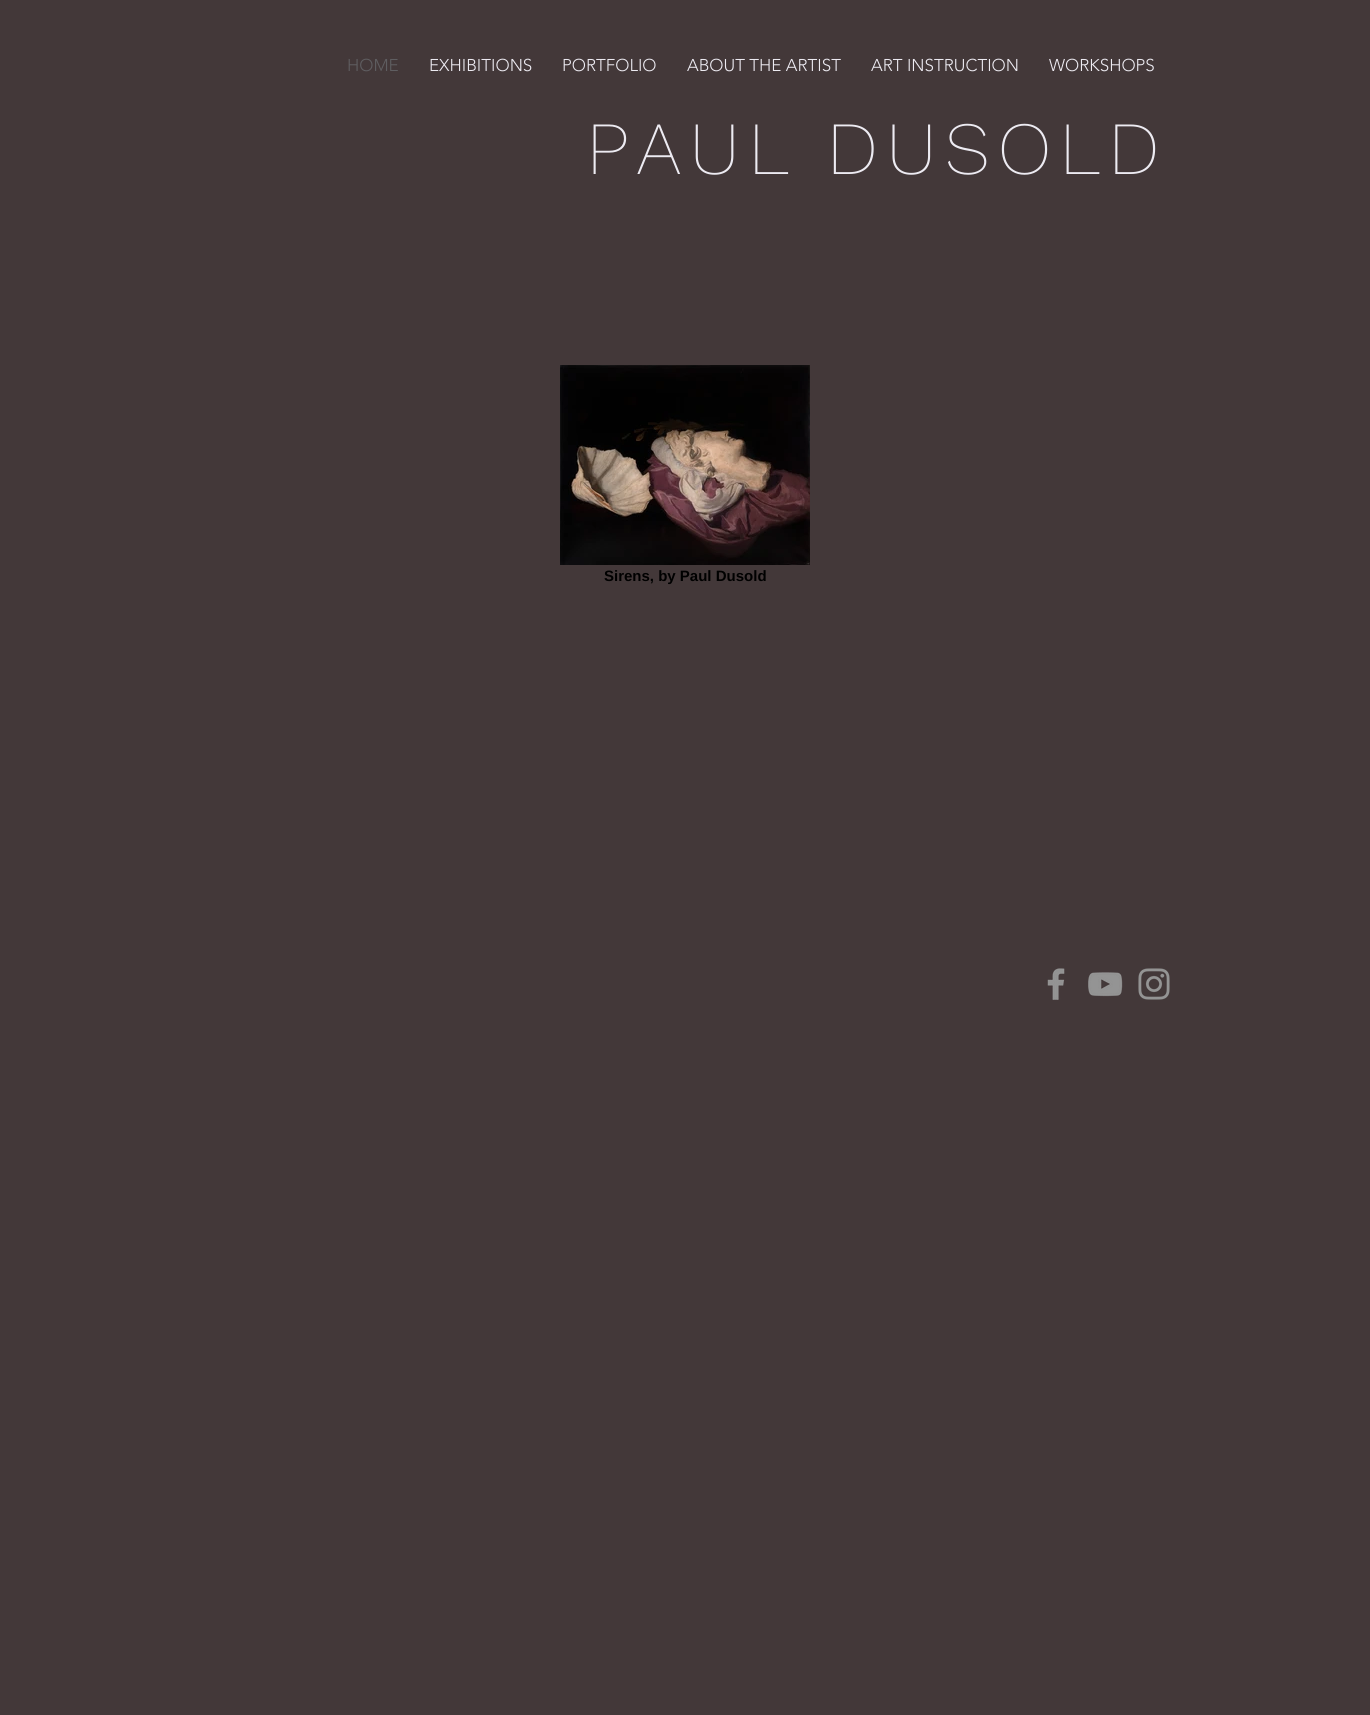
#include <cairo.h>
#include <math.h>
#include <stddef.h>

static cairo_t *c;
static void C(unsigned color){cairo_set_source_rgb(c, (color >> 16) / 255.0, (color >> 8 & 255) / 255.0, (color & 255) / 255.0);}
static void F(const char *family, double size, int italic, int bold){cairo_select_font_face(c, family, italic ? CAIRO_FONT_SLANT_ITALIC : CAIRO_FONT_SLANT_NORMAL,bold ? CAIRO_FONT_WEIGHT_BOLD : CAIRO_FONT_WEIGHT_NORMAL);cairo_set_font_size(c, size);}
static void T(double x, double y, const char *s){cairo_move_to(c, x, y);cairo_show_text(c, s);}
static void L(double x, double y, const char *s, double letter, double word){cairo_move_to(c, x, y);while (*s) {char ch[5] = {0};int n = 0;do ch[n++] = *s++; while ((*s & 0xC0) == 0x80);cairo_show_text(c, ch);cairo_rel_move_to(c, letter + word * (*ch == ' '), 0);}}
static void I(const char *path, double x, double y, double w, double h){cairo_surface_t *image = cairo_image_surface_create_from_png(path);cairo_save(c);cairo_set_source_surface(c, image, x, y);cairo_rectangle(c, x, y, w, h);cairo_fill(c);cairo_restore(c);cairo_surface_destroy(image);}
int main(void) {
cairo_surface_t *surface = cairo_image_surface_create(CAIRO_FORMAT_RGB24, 1370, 1715);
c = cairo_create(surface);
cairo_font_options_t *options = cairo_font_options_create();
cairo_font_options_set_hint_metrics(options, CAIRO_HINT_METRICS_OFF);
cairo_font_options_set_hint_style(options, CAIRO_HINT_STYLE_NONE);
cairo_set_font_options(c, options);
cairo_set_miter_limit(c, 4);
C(0x433839);
cairo_paint(c);
F("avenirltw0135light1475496 Light",17,0,0);
C(0x5f5e61);
T(347,71,"HOME");
C(0xedebf2);
T(429,71,"EXHIBITIONS");
T(562,71,"PORTFOLIO");
T(687,71,"ABOUT THE ARTIST");
T(871,71,"ART INSTRUCTION");
T(1049,71,"WORKSHOPS");
F("Work Sans ExtraLight",75,0,0);
L(586,174,"PAUL DUSOLD",7.5,0);
I("1.png",560,365,250,200);
F("Liberation Sans",15,0,1);
C(0x000000);
T(604,581,"Sirens, by Paul Dusold");
I("2.png",1047,968,18,32);
I("3.png",1088,972,35,25);
I("4.png",1138,968,32,32);
cairo_surface_write_to_png(surface, "o.png");
cairo_font_options_destroy(options);
cairo_destroy(c);
cairo_surface_destroy(surface);
return 0;
}
